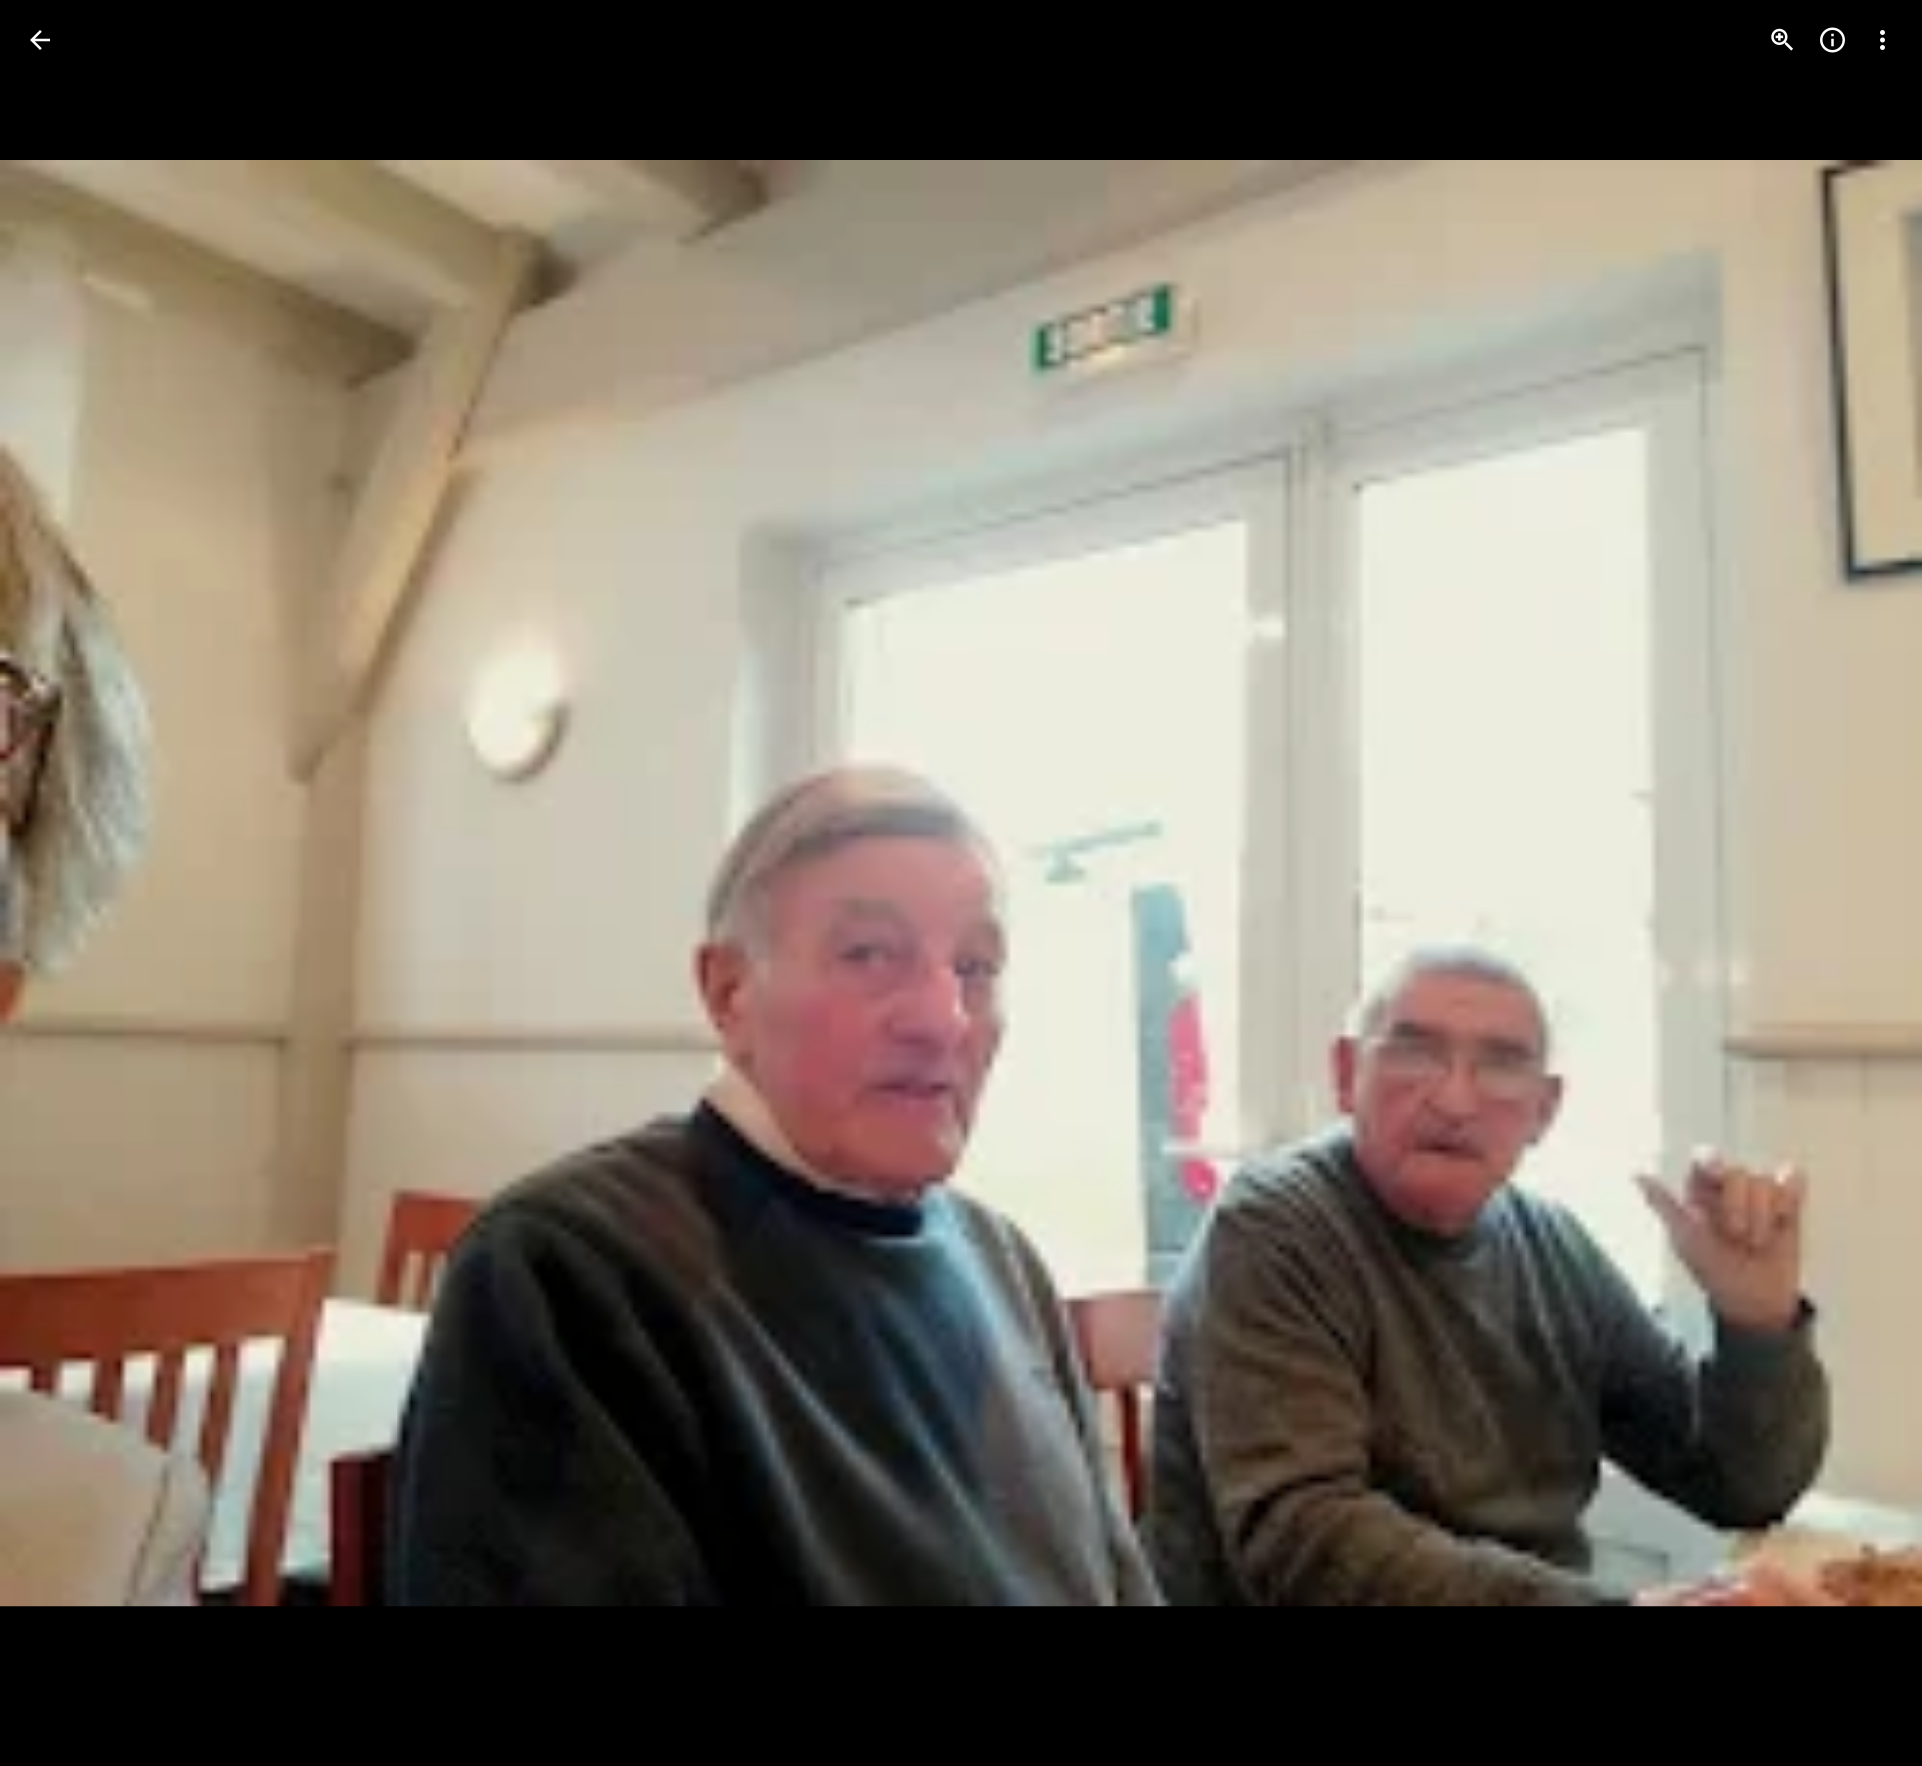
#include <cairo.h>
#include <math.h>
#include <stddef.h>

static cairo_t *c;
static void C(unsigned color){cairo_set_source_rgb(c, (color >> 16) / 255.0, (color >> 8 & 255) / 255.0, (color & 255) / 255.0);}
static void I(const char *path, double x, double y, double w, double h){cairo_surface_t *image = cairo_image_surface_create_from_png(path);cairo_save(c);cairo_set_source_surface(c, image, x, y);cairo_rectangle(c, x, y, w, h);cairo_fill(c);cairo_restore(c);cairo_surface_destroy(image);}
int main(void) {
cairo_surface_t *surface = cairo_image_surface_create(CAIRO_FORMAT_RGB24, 1922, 1766);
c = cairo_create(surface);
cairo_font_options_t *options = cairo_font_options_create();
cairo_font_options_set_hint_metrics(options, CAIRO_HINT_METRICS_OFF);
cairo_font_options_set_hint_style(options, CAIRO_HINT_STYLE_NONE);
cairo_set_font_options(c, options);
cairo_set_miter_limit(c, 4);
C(0x000000);
cairo_paint(c);
I("1.png",30,30,20,20);
I("2.png",1771,28,22,23);
I("3.png",1820,27,25,26);
I("4.png",1880,30,5,20);
I("5.png",0,160,1922,1447);
cairo_surface_write_to_png(surface, "o.png");
cairo_font_options_destroy(options);
cairo_destroy(c);
cairo_surface_destroy(surface);
return 0;
}
